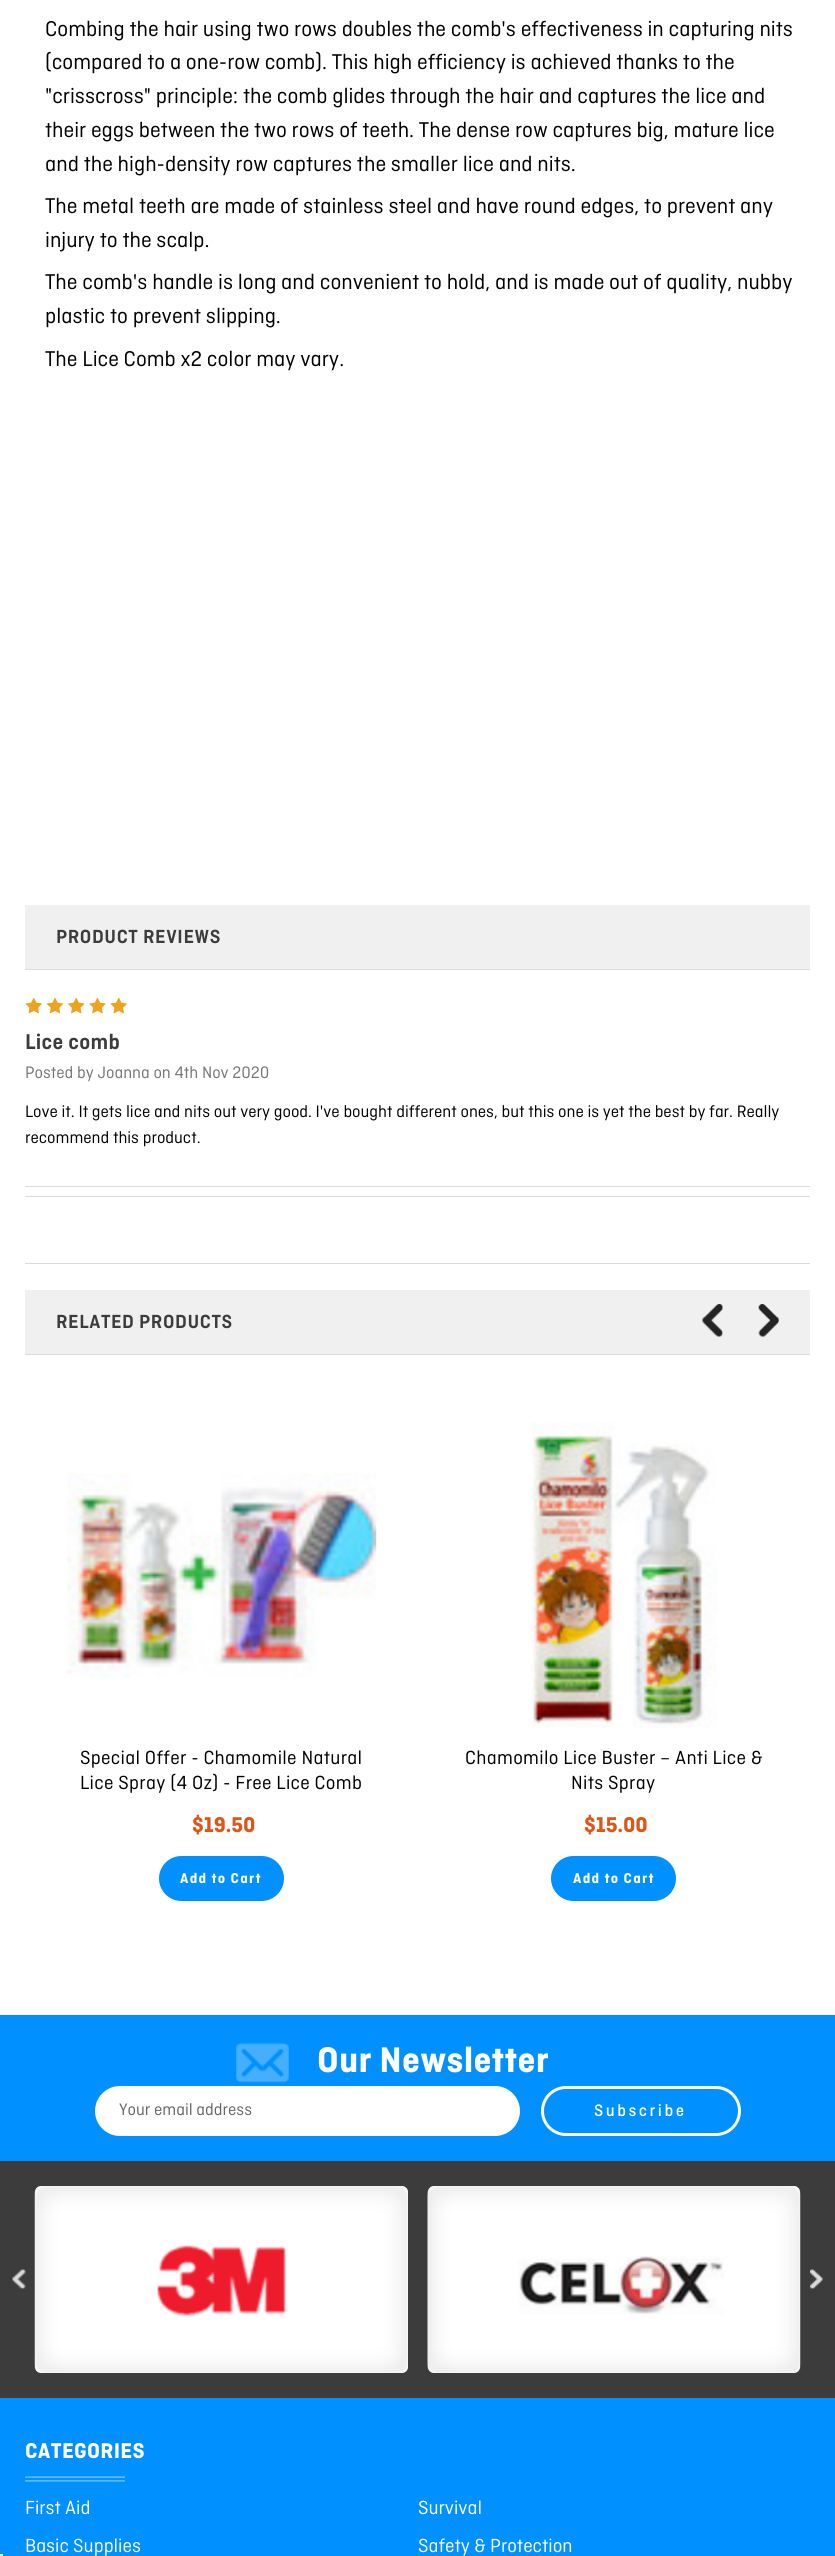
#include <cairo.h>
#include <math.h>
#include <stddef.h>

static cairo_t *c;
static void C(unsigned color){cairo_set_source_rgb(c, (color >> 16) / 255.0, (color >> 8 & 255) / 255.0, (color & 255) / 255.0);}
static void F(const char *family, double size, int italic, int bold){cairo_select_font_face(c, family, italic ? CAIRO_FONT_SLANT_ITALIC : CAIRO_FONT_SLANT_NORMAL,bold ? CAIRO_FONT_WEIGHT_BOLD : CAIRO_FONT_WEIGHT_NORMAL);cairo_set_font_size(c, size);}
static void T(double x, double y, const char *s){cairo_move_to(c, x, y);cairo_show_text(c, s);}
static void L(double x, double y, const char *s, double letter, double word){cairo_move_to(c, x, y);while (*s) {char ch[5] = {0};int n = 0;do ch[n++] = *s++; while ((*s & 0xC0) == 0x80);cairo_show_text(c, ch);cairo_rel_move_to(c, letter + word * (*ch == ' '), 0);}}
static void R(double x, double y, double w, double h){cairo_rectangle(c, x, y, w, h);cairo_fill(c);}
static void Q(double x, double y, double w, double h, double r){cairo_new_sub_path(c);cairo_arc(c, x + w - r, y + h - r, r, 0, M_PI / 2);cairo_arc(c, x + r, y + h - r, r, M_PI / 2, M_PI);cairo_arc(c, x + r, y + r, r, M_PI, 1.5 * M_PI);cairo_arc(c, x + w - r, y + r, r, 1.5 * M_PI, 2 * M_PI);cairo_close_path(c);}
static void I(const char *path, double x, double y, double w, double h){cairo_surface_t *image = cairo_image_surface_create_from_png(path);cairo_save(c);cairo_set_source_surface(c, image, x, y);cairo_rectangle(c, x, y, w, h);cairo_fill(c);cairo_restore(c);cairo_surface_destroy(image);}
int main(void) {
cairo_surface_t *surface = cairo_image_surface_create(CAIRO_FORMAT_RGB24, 835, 2556);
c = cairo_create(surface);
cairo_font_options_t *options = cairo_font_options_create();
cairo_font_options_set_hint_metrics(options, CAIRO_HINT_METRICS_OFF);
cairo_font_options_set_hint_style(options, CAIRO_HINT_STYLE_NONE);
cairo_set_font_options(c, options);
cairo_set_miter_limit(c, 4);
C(0xffffff);
cairo_paint(c);
F("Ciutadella",22.5,0,0);
C(0x000000);
T(45,36,"Combing the hair using two rows doubles the comb's effectiveness in capturing nits");
T(45,69,"(compared to a one-row comb). This high efficiency is achieved thanks to the");
T(45,103,"\"crisscross\" principle: the comb glides through the hair and captures the lice and");
T(45,137,"their eggs between the two rows of teeth. The dense row captures big, mature lice");
T(45,171,"and the high-density row captures the smaller lice and nits.");
T(45,213,"The metal teeth are made of stainless steel and have round edges, to prevent any");
T(45,247,"injury to the scalp.");
T(45,289,"The comb's handle is long and convenient to hold, and is made out of quality, nubby");
T(45,323,"plastic to prevent slipping.");
T(45,366,"The Lice Comb x2 color may vary.");
C(0xdcdcdc);
R(25,969,785,1);
C(0xf0f0f0);
R(25,905,785,64);
F("Ciutadella SemiBold",20,0,0);
C(0x3c3c3c);
L(56,943,"PRODUCT REVIEWS",.6,0);
C(0xdcdcdc);
R(25,1186,785,1);
I("1.png",25,998,17,16);
I("2.png",46,998,18,16);
I("3.png",68,998,17,16);
I("4.png",89,998,17,16);
I("1.png",110,998,17,16);
F("Ciutadella SemiBold",22.5,0,0);
C(0x3c3c3c);
L(25,1049,"Lice comb",.3,0);
F("Ciutadella",17.5,0,0);
C(0x757575);
T(25,1078,"Posted by Joanna on 4th Nov 2020");
C(0x000000);
T(25,1117,"Love it. It gets lice and nits out very good. I've bought different ones, but this one is yet the best by far. Really");
T(25,1143,"recommend this product.");
C(0xdcdcdc);
R(25,1196,785,1);
R(25,1263,785,1);
R(25,1354,785,1);
C(0xf0f0f0);
R(25,1290,785,64);
F("Ciutadella SemiBold",20,0,0);
C(0x3c3c3c);
L(56,1328,"RELATED PRODUCTS",.6,0);
I("5.png",702,1304,21,33);
I("6.png",758,1304,21,33);
I("7.png",67,1473,310,205);
F("Ciutadella",20,0,0);
C(0x000000);
L(80,1764,"Special Offer - Chamomile Natural",.3,0);
L(80,1789,"Lice Spray (4 Oz) - Free Lice Comb",.3,0);
F("Ciutadella",22.5,0,1);
C(0xdf5517);
T(192,1832,"$19.50");
C(0x0090ff);
Q(159,1856,125,45,22.5);
cairo_fill(c);
F("Ciutadella",15,0,1);
C(0xffffff);
L(180,1883,"Add to Cart",1.25,0);
I("8.png",531,1422,186,306);
F("Ciutadella",20,0,0);
C(0x000000);
L(465,1764,"Chamomilo Lice Buster – Anti Lice &",.3,0);
L(571,1789,"Nits Spray",.3,0);
F("Ciutadella",22.5,0,1);
C(0xdf5517);
T(584,1832,"$15.00");
C(0x0090ff);
Q(551,1856,125,45,22.5);
cairo_fill(c);
F("Ciutadella",15,0,1);
C(0xffffff);
L(573,1883,"Add to Cart",1.25,0);
C(0x0090ff);
R(0,2015,835,541);
C(0xf5f5f5);
R(0,2554,3,2);
I("9.png",236,2042,53,41);
F("Ciutadella",37.5,0,1);
C(0xffffff);
L(317,2072,"Our Newsletter",.3,0);
Q(95,2086,425,50,25);
cairo_fill(c);
F("Ciutadella",17.5,0,0);
C(0x666666);
T(119,2115,"Your email address");
Q(542.5,2087.5,197,47,23.5);
C(0xffffff);
cairo_set_line_width(c,3);
cairo_stroke(c);
F("Ciutadella Medium",17.5,0,0);
L(594,2116,"Subscribe",2.5,0);
C(0x3c3c3c);
R(0,2161,835,237);
I("10.png",12,2269,14,20);
C(0xffffff);
Q(35,2186,373,187,6);
cairo_fill(c);
I("11.png",34,2186,374,187);
Q(428,2186,372,187,6);
cairo_fill(c);
I("12.png",427,2186,374,187);
I("13.png",810,2269,13,20);
I("14.png",25,2476,100,6);
F("Ciutadella",22.5,0,1);
L(25,2458,"CATEGORIES",.3,0);
F("Ciutadella",20,0,0);
T(25,2514,"First Aid");
T(418,2514,"Survival");
T(25,2552,"Basic Supplies");
T(418,2552,"Safety & Protection");
cairo_surface_write_to_png(surface, "o.png");
cairo_font_options_destroy(options);
cairo_destroy(c);
cairo_surface_destroy(surface);
return 0;
}
